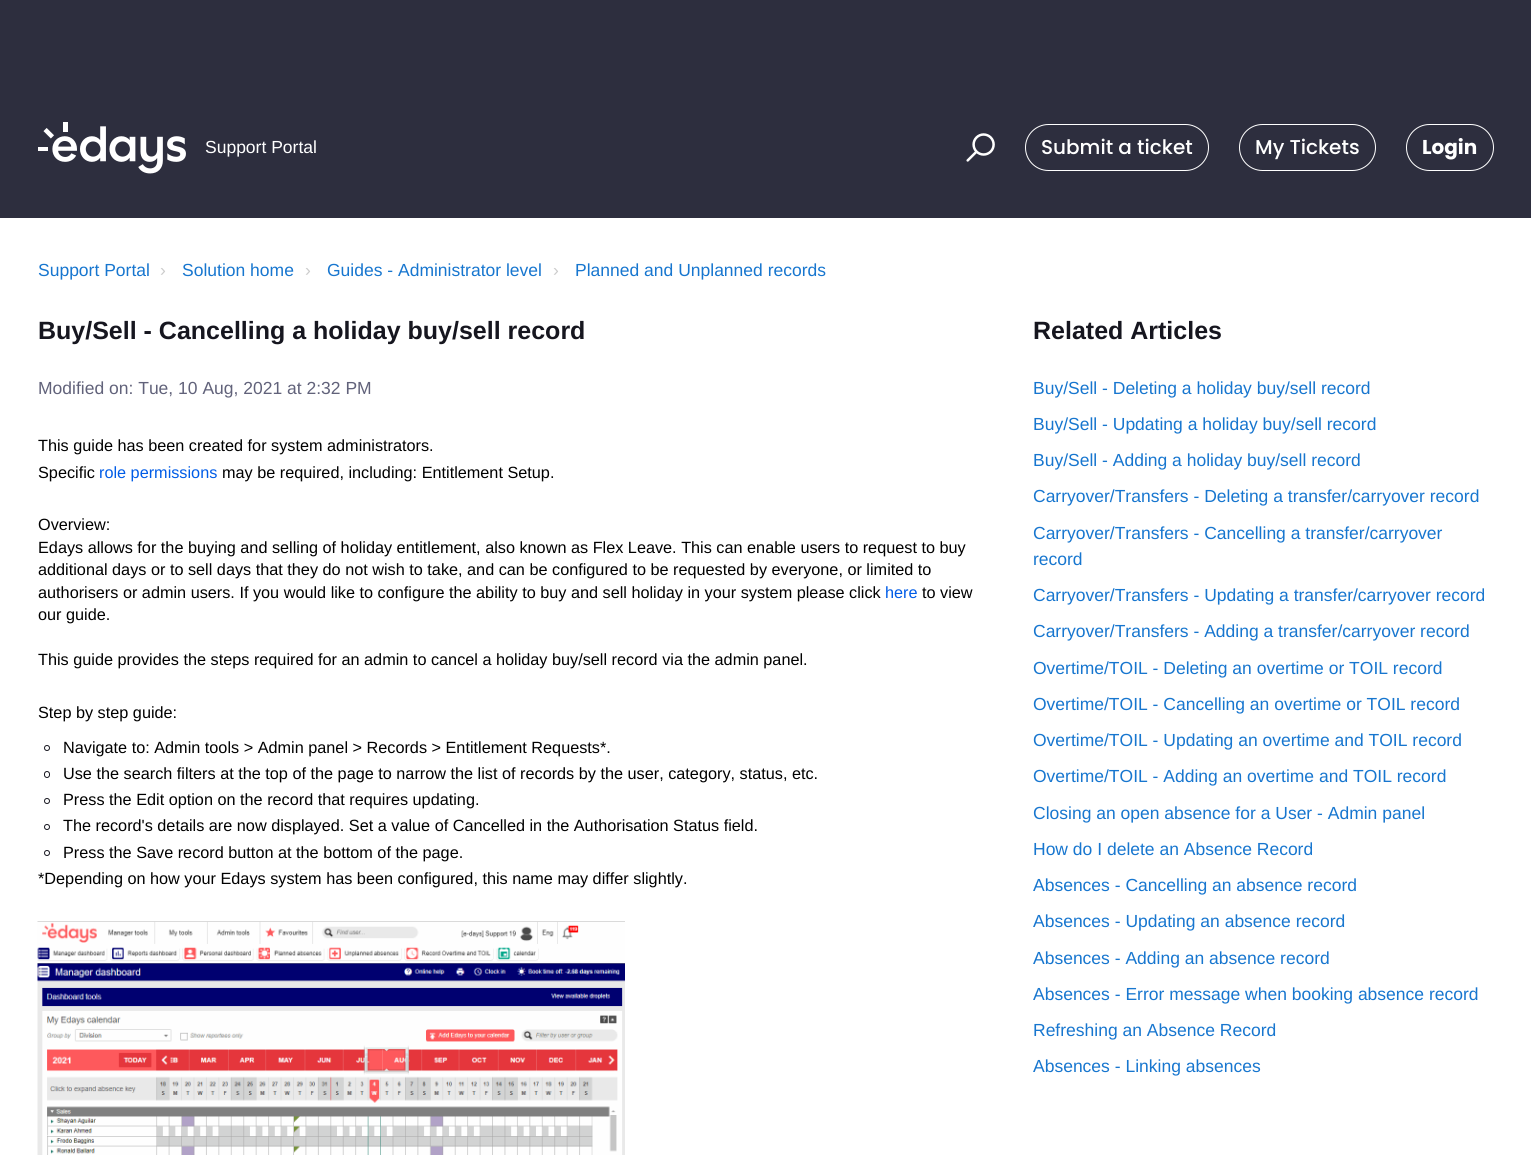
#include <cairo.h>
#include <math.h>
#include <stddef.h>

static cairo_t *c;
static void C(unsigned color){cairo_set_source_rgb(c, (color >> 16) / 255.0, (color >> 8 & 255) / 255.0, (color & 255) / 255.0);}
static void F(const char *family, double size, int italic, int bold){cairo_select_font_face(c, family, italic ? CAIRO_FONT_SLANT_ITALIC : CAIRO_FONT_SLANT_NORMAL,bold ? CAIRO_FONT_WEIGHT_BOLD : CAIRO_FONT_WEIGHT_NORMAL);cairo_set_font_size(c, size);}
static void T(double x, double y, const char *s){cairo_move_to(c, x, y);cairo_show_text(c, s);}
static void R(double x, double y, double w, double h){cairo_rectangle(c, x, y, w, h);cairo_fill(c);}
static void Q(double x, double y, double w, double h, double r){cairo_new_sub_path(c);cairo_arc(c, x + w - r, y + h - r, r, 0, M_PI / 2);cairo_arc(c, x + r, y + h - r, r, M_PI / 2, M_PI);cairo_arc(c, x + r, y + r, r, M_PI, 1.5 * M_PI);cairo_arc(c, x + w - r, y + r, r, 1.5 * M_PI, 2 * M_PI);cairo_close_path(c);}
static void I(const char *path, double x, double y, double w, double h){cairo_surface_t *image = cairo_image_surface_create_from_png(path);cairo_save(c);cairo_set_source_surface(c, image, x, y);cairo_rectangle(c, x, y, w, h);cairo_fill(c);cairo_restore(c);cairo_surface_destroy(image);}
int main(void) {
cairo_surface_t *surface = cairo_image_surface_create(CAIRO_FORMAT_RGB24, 1531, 1155);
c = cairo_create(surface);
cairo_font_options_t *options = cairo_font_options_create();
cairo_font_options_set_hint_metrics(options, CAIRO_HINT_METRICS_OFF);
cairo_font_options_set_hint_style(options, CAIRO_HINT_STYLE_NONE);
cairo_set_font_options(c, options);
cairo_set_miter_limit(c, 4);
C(0xffffff);
cairo_paint(c);
C(0x2d2e3e);
R(0,0,1531,218);
I("1.png",38,122,148,52);
F("Liberation Sans",17.5,0,0);
C(0xffffff);
T(205,153,"Support Portal");
I("2.png",966,133,29,29);
Q(1025.5,124.5,183,46,23);
cairo_set_line_width(c,1);
cairo_stroke(c);
F("Poppins Medium",20,0,0);
T(1041,154,"Submit a ticket");
Q(1239.5,124.5,136,46,23);
cairo_stroke(c);
T(1255,154,"My Tickets");
Q(1406.5,124.5,87,46,23);
cairo_stroke(c);
F("Poppins",20,0,1);
T(1422,154,"Login");
F("Liberation Sans",17.5,0,0);
C(0x1776cf);
T(38,276,"Support Portal");
C(0xcccccc);
T(160,276,"›");
C(0x1776cf);
T(182,276,"Solution home");
C(0xcccccc);
T(305,276,"›");
C(0x1776cf);
T(327,276,"Guides - Administrator level");
C(0xcccccc);
T(553,276,"›");
C(0x1776cf);
T(575,276,"Planned and Unplanned records");
F("Liberation Sans",25,0,1);
C(0x16161f);
T(38,339,"Buy/Sell - Cancelling a holiday buy/sell record");
F("Liberation Sans",17.5,0,0);
C(0x61627a);
T(38,394,"Modified on: Tue, 10 Aug, 2021 at 2:32 PM");
F("Liberation Sans",16.25,0,0);
C(0x000000);
T(38,451,"This guide has been created for system administrators.");
T(38,478,"Specific");
C(0x005ce7);
T(99,478,"role permissions");
C(0x000000);
T(222,478,"may be required, including: Entitlement Setup.");
T(38,530,"Overview:");
T(38,553,"Edays allows for the buying and selling of holiday entitlement, also known as Flex Leave. This can enable users to request to buy");
T(38,575,"additional days or to sell days that they do not wish to take, and can be configured to be requested by everyone, or limited to");
T(38,598,"authorisers or admin users. If you would like to configure the ability to buy and sell holiday in your system please click");
C(0x005ce7);
T(885,598,"here");
C(0x000000);
T(922,598,"to view");
T(38,620,"our guide.");
T(38,665,"This guide provides the steps required for an admin to cancel a holiday buy/sell record via the admin panel.");
T(38,718,"Step by step guide:");
cairo_new_path(c);
cairo_arc(c,47,748,2.5,0,2 * M_PI);
C(0x16161f);
cairo_stroke(c);
C(0x000000);
T(63,753,"Navigate to: Admin tools > Admin panel > Records > Entitlement Requests*.");
Q(44.5,771.5,5,6,2.5);
C(0x16161f);
cairo_stroke(c);
C(0x000000);
T(63,779,"Use the search filters at the top of the page to narrow the list of records by the user, category, status, etc.");
cairo_new_path(c);
cairo_arc(c,47,801,2.5,0,2 * M_PI);
C(0x16161f);
cairo_stroke(c);
C(0x000000);
T(63,805,"Press the Edit option on the record that requires updating.");
cairo_new_path(c);
cairo_arc(c,47,827,2.5,0,2 * M_PI);
C(0x16161f);
cairo_stroke(c);
C(0x000000);
T(63,831,"The record's details are now displayed. Set a value of Cancelled in the Authorisation Status field.");
cairo_new_path(c);
cairo_arc(c,47,853,2.5,0,2 * M_PI);
C(0x16161f);
cairo_stroke(c);
C(0x000000);
T(63,858,"Press the Save record button at the bottom of the page.");
T(38,884,"*Depending on how your Edays system has been configured, this name may differ slightly.");
I("3.png",37,921,588,234);
F("Liberation Sans",25,0,1);
C(0x16161f);
T(1033,339,"Related Articles");
F("Liberation Sans",17.5,0,0);
C(0x1776cf);
T(1033,394,"Buy/Sell - Deleting a holiday buy/sell record");
T(1033,430,"Buy/Sell - Updating a holiday buy/sell record");
T(1033,466,"Buy/Sell - Adding a holiday buy/sell record");
T(1033,502,"Carryover/Transfers - Deleting a transfer/carryover record");
T(1033,539,"Carryover/Transfers - Cancelling a transfer/carryover");
T(1033,565,"record");
T(1033,601,"Carryover/Transfers - Updating a transfer/carryover record");
T(1033,637,"Carryover/Transfers - Adding a transfer/carryover record");
T(1033,674,"Overtime/TOIL - Deleting an overtime or TOIL record");
T(1033,710,"Overtime/TOIL - Cancelling an overtime or TOIL record");
T(1033,746,"Overtime/TOIL - Updating an overtime and TOIL record");
T(1033,782,"Overtime/TOIL - Adding an overtime and TOIL record");
T(1033,819,"Closing an open absence for a User - Admin panel");
T(1033,855,"How do I delete an Absence Record");
T(1033,891,"Absences - Cancelling an absence record");
T(1033,927,"Absences - Updating an absence record");
T(1033,964,"Absences - Adding an absence record");
T(1033,1000,"Absences - Error message when booking absence record");
T(1033,1036,"Refreshing an Absence Record");
T(1033,1072,"Absences - Linking absences");
cairo_surface_write_to_png(surface, "o.png");
cairo_font_options_destroy(options);
cairo_destroy(c);
cairo_surface_destroy(surface);
return 0;
}
